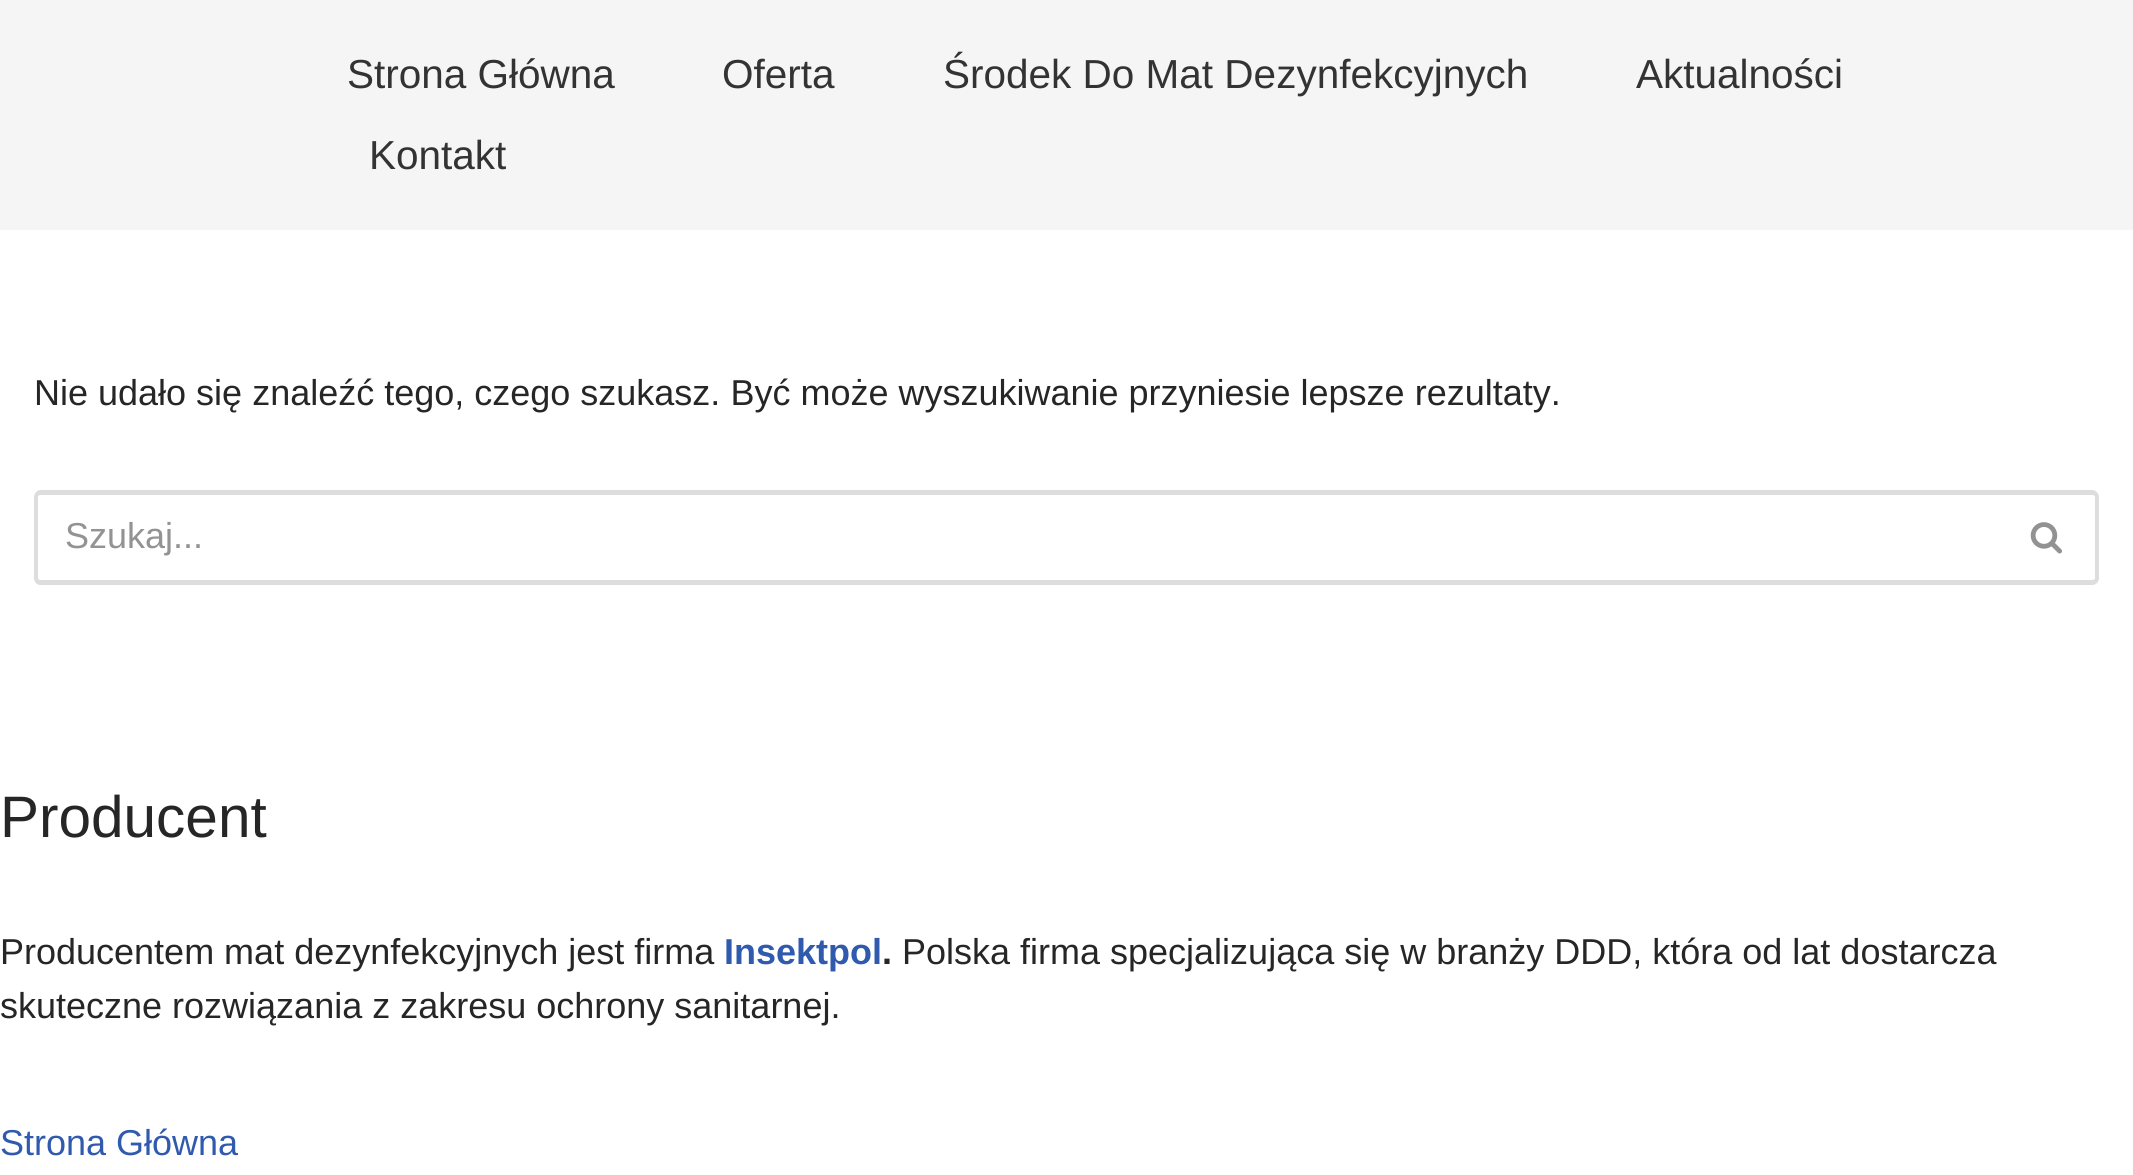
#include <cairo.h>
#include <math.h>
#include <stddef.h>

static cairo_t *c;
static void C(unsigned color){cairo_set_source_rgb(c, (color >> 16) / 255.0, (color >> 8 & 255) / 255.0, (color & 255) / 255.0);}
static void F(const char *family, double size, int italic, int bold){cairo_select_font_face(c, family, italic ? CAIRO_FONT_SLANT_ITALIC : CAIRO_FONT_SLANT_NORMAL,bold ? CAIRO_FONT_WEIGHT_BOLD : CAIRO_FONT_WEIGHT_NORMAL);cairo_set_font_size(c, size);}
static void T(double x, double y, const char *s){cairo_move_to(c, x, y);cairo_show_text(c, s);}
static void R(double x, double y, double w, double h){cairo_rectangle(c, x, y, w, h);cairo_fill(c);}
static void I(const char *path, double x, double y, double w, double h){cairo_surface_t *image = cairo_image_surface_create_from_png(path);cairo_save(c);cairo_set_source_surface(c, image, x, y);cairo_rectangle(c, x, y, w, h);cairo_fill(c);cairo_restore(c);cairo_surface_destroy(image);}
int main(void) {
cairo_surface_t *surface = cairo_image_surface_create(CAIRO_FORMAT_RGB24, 2133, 1175);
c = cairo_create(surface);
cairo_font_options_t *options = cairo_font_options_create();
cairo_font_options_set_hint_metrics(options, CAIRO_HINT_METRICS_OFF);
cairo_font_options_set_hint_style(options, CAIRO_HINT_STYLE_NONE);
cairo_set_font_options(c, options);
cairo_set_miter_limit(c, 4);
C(0xffffff);
cairo_paint(c);
C(0xf5f5f5);
R(0,0,2133,230);
F("Liberation Sans",40.5,0,0);
C(0x333333);
T(347,88,"Strona Główna");
T(722,88,"Oferta");
T(943,88,"Środek Do Mat Dezynfekcyjnych");
T(1636,88,"Aktualności");
T(369,169,"Kontakt");
F("Liberation Sans",36,0,0);
C(0x272626);
T(34,405,"Nie udało się znaleźć tego, czego szukasz. Być może wyszukiwanie przyniesie lepsze rezultaty.");
C(0xdddddd);
cairo_set_fill_rule(c,CAIRO_FILL_RULE_EVEN_ODD);
cairo_new_path(c);
cairo_move_to(c,40,490);
cairo_line_to(c,1998,490);
cairo_line_to(c,1998,585);
cairo_line_to(c,40,585);
cairo_curve_to(c,37,585,34,582,34,578);
cairo_line_to(c,34,497);
cairo_curve_to(c,34,494,37,490,40,490);
cairo_close_path(c);
cairo_move_to(c,40,495);
cairo_line_to(c,1998,495);
cairo_line_to(c,1998,580);
cairo_line_to(c,40,580);
cairo_curve_to(c,39,580,38,579,38,578);
cairo_line_to(c,38,497);
cairo_curve_to(c,38,496,39,495,40,495);
cairo_close_path(c);
cairo_fill(c);
C(0x939393);
T(65,548,"Szukaj...");
C(0xdddddd);
cairo_new_path(c);
cairo_move_to(c,1998,490);
cairo_line_to(c,2092,490);
cairo_curve_to(c,2096,490,2099,494,2099,497);
cairo_line_to(c,2099,578);
cairo_curve_to(c,2099,582,2096,585,2092,585);
cairo_line_to(c,1998,585);
cairo_close_path(c);
cairo_move_to(c,1998,495);
cairo_line_to(c,2092,495);
cairo_curve_to(c,2094,495,2095,496,2095,497);
cairo_line_to(c,2095,578);
cairo_curve_to(c,2095,579,2094,580,2092,580);
cairo_line_to(c,1998,580);
cairo_close_path(c);
cairo_fill(c);
I("1.png",2030,522,32,32);
F("Liberation Sans",58.5,0,0);
C(0x272626);
T(0,837,"Producent");
F("Liberation Sans",36,0,0);
T(0,964,"Producentem mat dezynfekcyjnych jest firma");
F("Liberation Sans",36,0,1);
C(0x2f5aae);
T(724,964,"Insektpol");
C(0x272626);
T(882,964,".");
F("Liberation Sans",36,0,0);
T(902,964,"Polska firma specjalizująca się w branży DDD, która od lat dostarcza");
T(0,1018,"skuteczne rozwiązania z zakresu ochrony sanitarnej.");
C(0x2f5aae);
T(0,1155,"Strona Główna");
cairo_surface_write_to_png(surface, "o.png");
cairo_font_options_destroy(options);
cairo_destroy(c);
cairo_surface_destroy(surface);
return 0;
}
